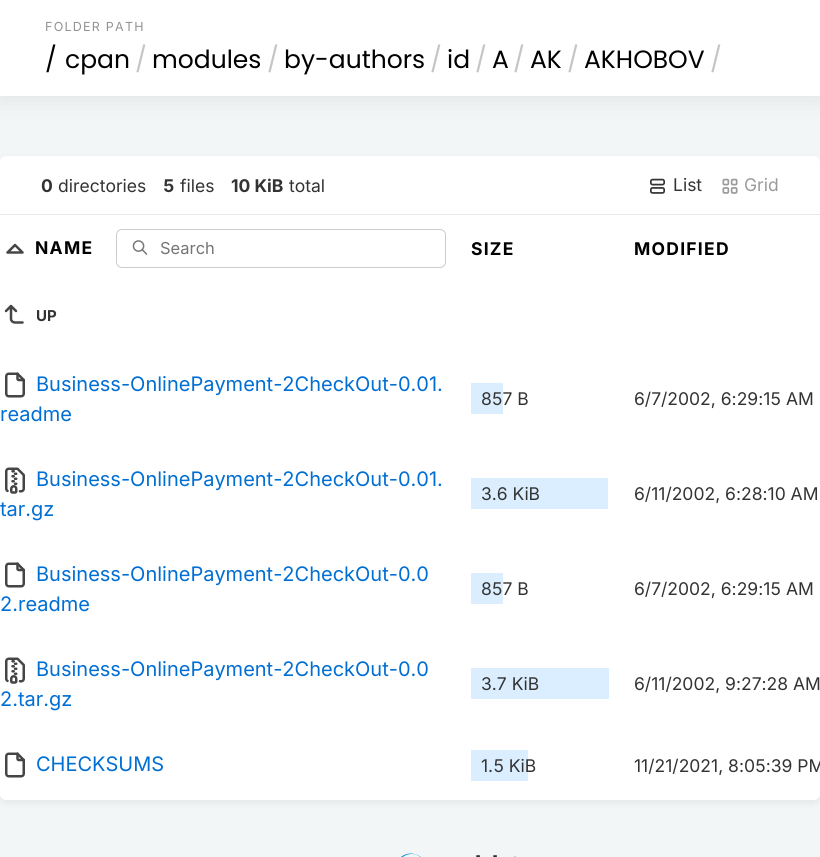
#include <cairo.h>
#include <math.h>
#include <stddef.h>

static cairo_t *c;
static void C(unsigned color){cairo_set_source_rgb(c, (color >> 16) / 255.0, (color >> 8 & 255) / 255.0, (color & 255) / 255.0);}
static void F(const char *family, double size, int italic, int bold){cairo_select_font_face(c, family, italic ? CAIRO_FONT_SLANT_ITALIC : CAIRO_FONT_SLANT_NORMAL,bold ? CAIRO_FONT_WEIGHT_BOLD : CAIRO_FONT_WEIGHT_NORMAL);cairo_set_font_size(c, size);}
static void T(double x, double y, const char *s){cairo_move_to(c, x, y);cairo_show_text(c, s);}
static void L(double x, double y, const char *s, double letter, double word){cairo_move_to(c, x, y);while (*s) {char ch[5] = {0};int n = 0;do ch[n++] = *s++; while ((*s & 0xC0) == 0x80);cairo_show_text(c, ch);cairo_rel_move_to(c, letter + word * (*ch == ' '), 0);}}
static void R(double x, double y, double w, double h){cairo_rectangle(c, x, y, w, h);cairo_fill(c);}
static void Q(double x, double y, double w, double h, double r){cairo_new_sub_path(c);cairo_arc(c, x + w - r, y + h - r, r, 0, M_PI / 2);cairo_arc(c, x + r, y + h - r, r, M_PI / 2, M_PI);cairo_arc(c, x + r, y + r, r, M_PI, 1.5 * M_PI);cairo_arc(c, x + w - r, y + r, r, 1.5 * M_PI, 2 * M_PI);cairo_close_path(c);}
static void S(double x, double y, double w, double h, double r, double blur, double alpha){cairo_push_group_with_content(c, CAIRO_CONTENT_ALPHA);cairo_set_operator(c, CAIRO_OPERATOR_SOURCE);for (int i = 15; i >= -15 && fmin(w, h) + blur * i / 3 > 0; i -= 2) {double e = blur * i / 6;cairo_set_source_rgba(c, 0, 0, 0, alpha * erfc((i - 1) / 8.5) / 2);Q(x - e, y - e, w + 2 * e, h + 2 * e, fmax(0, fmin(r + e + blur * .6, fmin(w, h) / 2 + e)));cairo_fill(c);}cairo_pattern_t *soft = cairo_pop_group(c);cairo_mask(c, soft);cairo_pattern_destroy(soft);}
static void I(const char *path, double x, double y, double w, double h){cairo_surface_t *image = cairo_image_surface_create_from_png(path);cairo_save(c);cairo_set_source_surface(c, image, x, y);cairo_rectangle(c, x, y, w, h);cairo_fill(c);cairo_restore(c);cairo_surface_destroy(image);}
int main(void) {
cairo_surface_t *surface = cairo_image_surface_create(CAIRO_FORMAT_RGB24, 820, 857);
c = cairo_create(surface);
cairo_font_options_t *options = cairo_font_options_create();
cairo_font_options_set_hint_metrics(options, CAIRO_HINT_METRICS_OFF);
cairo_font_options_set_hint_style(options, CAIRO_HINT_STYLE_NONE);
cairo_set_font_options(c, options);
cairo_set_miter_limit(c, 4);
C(0xf3f6f7);
cairo_paint(c);
C(0x000000);
S(0,0,820,96,0,12.5,.1);
C(0xffffff);
R(0,0,820,96);
F("Inter",12.5,0,0);
C(0x939393);
L(45,31,"FOLDER PATH",1.25,0);
F("Poppins",25,0,0);
C(0x000000);
T(45,68,"/");
T(65,68,"cpan");
C(0xc5c5c5);
T(135,68,"/");
C(0x000000);
T(152,68,"modules");
C(0xc5c5c5);
T(267,68,"/");
C(0x000000);
T(284,68,"by-authors");
C(0xc5c5c5);
T(430,68,"/");
C(0x000000);
T(447,68,"id");
C(0xc5c5c5);
T(475,68,"/");
C(0x000000);
T(492,68,"A");
C(0xc5c5c5);
T(513,68,"/");
C(0x000000);
T(530,68,"AK");
C(0xc5c5c5);
T(567,68,"/");
C(0x000000);
T(584,68,"AKHOBOV");
C(0xc5c5c5);
T(710,68,"/");
C(0x000000);
S(-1,158,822,646,8,3,.05);
C(0xffffff);
Q(0,156,820,644,6);
cairo_fill(c);
C(0xe5e9ea);
R(0,214,820,1);
F("Inter",17.5,0,1);
C(0x333333);
T(41,192,"0");
F("Inter",17.5,0,0);
T(58,192,"directories");
F("Inter",17.5,0,1);
T(163,192,"5");
F("Inter",17.5,0,0);
T(180,192,"files");
F("Inter",17.5,0,1);
T(231,192,"10 KiB");
F("Inter",17.5,0,0);
T(289,192,"total");
I("1.png",650,178,15,16);
T(673,191,"List");
I("2.png",722,178,16,16);
C(0x9a9a9a);
T(744,191,"Grid");
cairo_new_path(c);
cairo_move_to(c,22.5,252.5);
cairo_line_to(c,15,245);
cairo_line_to(c,7.5,252.5);
cairo_line_to(c,22.5,252.5);
C(0x454545);
cairo_set_line_width(c,2.5);
cairo_set_line_cap(c,CAIRO_LINE_CAP_ROUND);
cairo_set_line_join(c,CAIRO_LINE_JOIN_ROUND);
cairo_stroke(c);
F("Inter",17.5,0,1);
C(0x000000);
L(35,254,"NAME",1.25,0);
I("3.png",132,240,16,15);
Q(116.5,229.5,329,38,5.5);
C(0xcccccc);
cairo_set_line_width(c,1);
cairo_set_line_cap(c,CAIRO_LINE_CAP_BUTT);
cairo_set_line_join(c,CAIRO_LINE_JOIN_MITER);
cairo_stroke(c);
F("Inter",16.5,0,0);
C(0x757575);
T(160,254,"Search");
F("Inter",17.5,0,1);
C(0x000000);
L(471,255,"SIZE",1.25,0);
L(634,255,"MODIFIED",1.25,0);
cairo_new_path(c);
cairo_move_to(c,22.5,322.5);
cairo_line_to(c,15,322.5);
cairo_curve_to(c,13,322.5,11,321,11,319);
cairo_line_to(c,11,306);
cairo_line_to(c,6,311);
cairo_move_to(c,16,311);
cairo_line_to(c,11,306);
C(0x454545);
cairo_set_line_width(c,2.5);
cairo_set_line_cap(c,CAIRO_LINE_CAP_ROUND);
cairo_set_line_join(c,CAIRO_LINE_JOIN_ROUND);
cairo_stroke(c);
F("Inter",15,0,1);
C(0x333333);
T(36,321,"UP");
I("4.png",5,372,20,26);
F("Inter",20,0,0);
C(0x006ed3);
T(36,391,"Business-OnlinePayment-2CheckOut-0.01.");
T(0,421,"readme");
C(0xdbeeff);
R(471,383,32,31);
F("Inter",17.5,0,0);
C(0x333333);
T(481,405,"857 B");
T(634,405,"6/7/2002, 6:29:15 AM");
I("5.png",5,467,20,27);
F("Inter",20,0,0);
C(0x006ed3);
T(36,486,"Business-OnlinePayment-2CheckOut-0.01.");
T(0,516,"tar.gz");
C(0xdbeeff);
R(471,478,137,31);
F("Inter",17.5,0,0);
C(0x333333);
T(481,500,"3.6 KiB");
T(634,500,"6/11/2002, 6:28:10 AM");
I("4.png",5,562,20,26);
F("Inter",20,0,0);
C(0x006ed3);
T(36,581,"Business-OnlinePayment-2CheckOut-0.0");
T(0,611,"2.readme");
C(0xdbeeff);
R(471,573,32,31);
F("Inter",17.5,0,0);
C(0x333333);
T(481,595,"857 B");
T(634,595,"6/7/2002, 6:29:15 AM");
I("5.png",5,657,20,27);
F("Inter",20,0,0);
C(0x006ed3);
T(36,676,"Business-OnlinePayment-2CheckOut-0.0");
T(0,706,"2.tar.gz");
C(0xdbeeff);
R(471,668,138,31);
F("Inter",17.5,0,0);
C(0x333333);
T(481,690,"3.7 KiB");
T(634,690,"6/11/2002, 9:27:28 AM");
I("4.png",5,752,20,26);
F("Inter",20,0,0);
C(0x006ed3);
T(36,771,"CHECKSUMS");
C(0xdbeeff);
R(471,750,57,31);
F("Inter",17.5,0,0);
C(0x333333);
T(481,772,"1.5 KiB");
T(634,772,"11/21/2021, 8:05:39 PM");
I("6.png",401,853,115,4);
cairo_surface_write_to_png(surface, "o.png");
cairo_font_options_destroy(options);
cairo_destroy(c);
cairo_surface_destroy(surface);
return 0;
}
